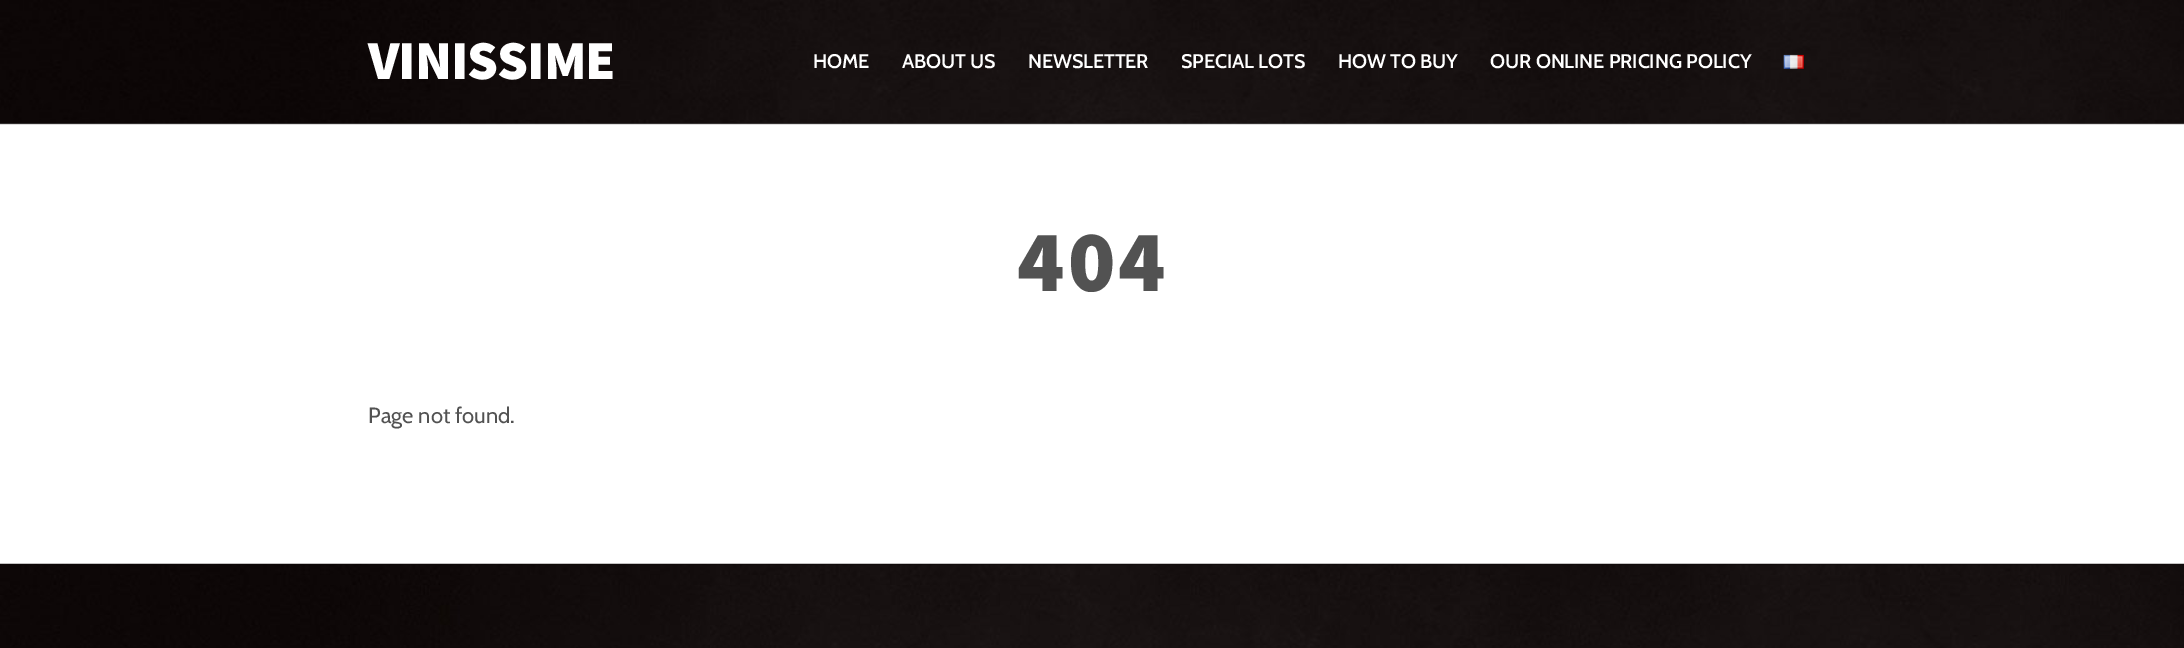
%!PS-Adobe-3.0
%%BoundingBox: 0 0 2184 648
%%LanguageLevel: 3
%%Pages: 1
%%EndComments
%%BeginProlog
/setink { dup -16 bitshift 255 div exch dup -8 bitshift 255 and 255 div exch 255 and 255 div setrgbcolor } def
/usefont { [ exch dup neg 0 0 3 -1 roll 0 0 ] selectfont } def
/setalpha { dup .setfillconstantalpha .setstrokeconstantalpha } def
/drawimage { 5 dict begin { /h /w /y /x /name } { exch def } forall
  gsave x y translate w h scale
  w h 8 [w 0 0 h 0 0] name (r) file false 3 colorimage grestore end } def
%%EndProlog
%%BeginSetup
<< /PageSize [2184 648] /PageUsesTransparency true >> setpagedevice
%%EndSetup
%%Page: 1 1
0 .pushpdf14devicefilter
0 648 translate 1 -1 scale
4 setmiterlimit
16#FFFFFF setink
0 0 2184 648 rectfill
16#808080 setink
0 123 2184 1 rectfill
(img1.raw) 0 0 2184 125 drawimage
0.1 setalpha
16#000000 setink
0 123 2184 1 rectfill
/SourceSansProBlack-Black 55 usefont
1 setalpha
16#FFFFFF setink
368 79 moveto -1 0 (VINISSIME) ashow
/Cabin-SemiBold 19.75 usefont
813 68 moveto -0.1 0 (HOME) ashow
902 68 moveto -0.1 0 (ABOUT US) ashow
1028 68 moveto -0.1 0 (NEWSLETTER) ashow
1181 68 moveto -0.1 0 (SPECIAL LOTS) ashow
1338 68 moveto -0.1 0 (HOW TO BUY) ashow
1490 68 moveto -0.1 0 (OUR ONLINE PRICING POLICY) ashow
(img2.raw) 1783 54 21 15 drawimage
/SourceSansProBlack-Black 88 usefont
16#525252 setink
1017 291 moveto 3 0 (404) ashow
/Cabin-Regular 22 usefont
368 423 moveto (Page not found.) show
(img3.raw) 0 563 2184 85 drawimage
16#100B0B setink
576 647 2 1 rectfill
.poppdf14devicefilter showpage
%%EOF
